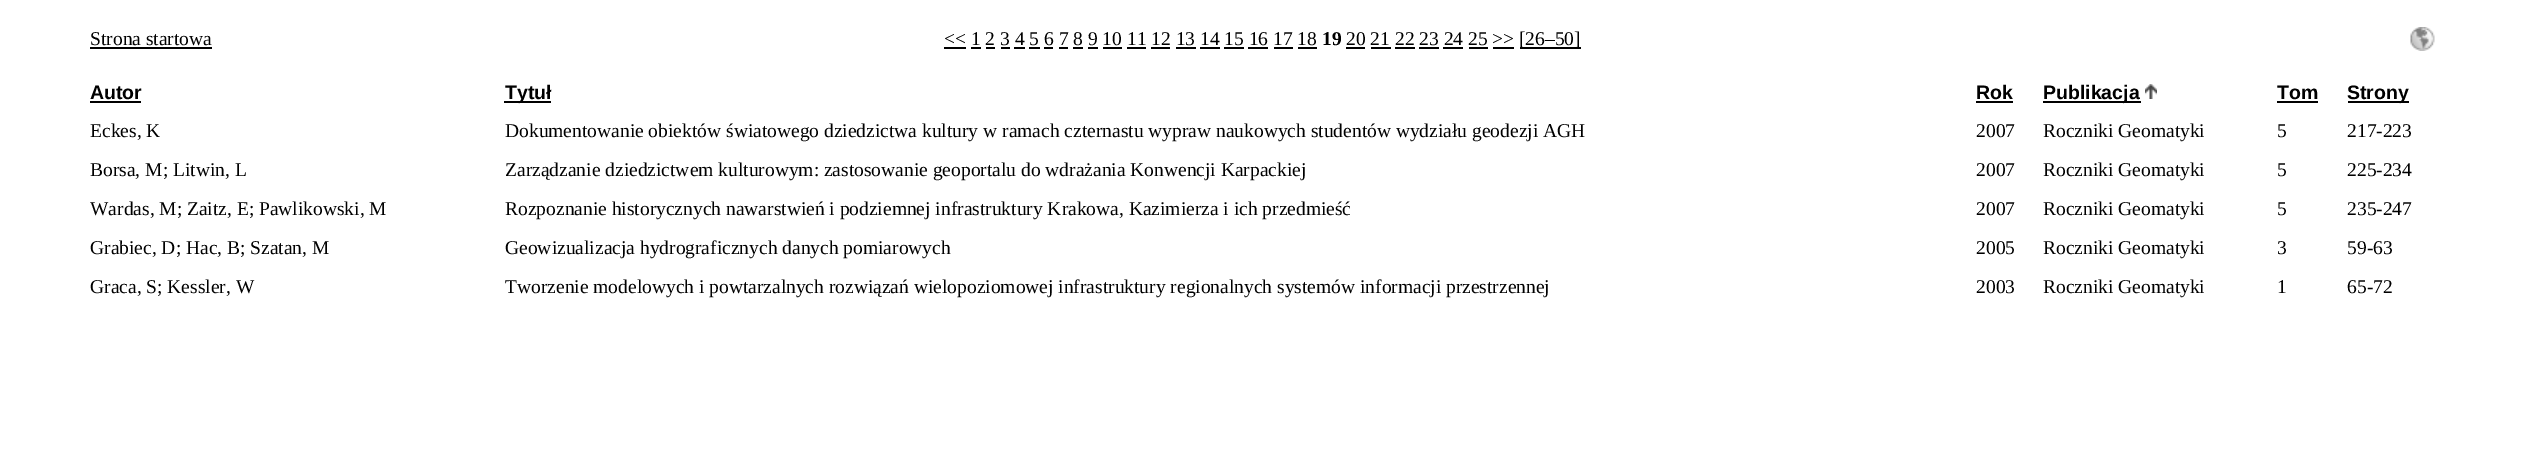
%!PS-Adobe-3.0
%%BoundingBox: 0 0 2524 454
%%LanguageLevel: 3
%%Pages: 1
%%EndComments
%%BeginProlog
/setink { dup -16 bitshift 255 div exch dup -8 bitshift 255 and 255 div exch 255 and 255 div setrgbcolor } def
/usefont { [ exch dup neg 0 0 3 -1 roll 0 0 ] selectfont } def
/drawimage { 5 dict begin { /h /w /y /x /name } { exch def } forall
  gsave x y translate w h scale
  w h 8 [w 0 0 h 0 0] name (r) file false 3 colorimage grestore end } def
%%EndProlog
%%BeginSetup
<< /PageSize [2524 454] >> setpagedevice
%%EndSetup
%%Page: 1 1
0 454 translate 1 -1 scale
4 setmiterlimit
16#FFFFFF setink
0 0 2524 454 rectfill
/LiberationSerif-Regular 19.5 usefont
16#000000 setink
90 45 moveto (Strona startowa) show
90 47 122 2 rectfill
944 45 moveto (<< 1 2 3 4 5 6 7 8 9 10 11 12 13 14 15 16 17 18) show
944 47 22 2 rectfill
/LiberationSerif-Bold 19.5 usefont
1322 45 moveto (19) show
/LiberationSerif-Regular 19.5 usefont
1346 45 moveto (20 21 22 23 24 25 >>) show
1346 47 19 2 rectfill
1520 47 61 2 rectfill
1519 45 moveto ([26–50]) show
[
    [971 47 10 2 16#000000]
    [986 47 9 2 16#000000]
    [1001 47 9 2 16#000000]
    [1014 47 11 2 16#000000]
    [1029 47 11 2 16#000000]
    [1044 47 9 2 16#000000]
    [1059 47 9 2 16#000000]
    [1073 47 10 2 16#000000]
    [1088 47 10 2 16#000000]
    [1103 47 19 2 16#000000]
    [1127 47 19 2 16#000000]
    [1151 47 19 2 16#000000]
    [1176 47 20 2 16#000000]
    [1200 47 20 2 16#000000]
    [1224 47 20 2 16#000000]
    [1248 47 20 2 16#000000]
    [1274 47 19 2 16#000000]
    [1298 47 19 2 16#000000]
    [1371 47 20 2 16#000000]
    [1395 47 20 2 16#000000]
    [1419 47 20 2 16#000000]
    [1443 47 20 2 16#000000]
    [1469 47 19 2 16#000000]
    [1493 47 21 2 16#000000]
] { aload pop setink rectfill } forall
(img1.raw) 2410 27 25 24 drawimage
/LiberationSans-Bold 19.5 usefont
90 99 moveto (Autor) show
90 101 51 2 rectfill
504 101 47 2 rectfill
505 99 moveto (Tytuł) show
1976 99 moveto (Rok) show
1976 101 37 2 rectfill
2043 101 98 2 rectfill
2043 99 moveto (Publikacja) show
(img2.raw) 2145 84 12 15 drawimage
2277 99 moveto (Tom) show
2277 101 41 2 rectfill
2348 101 61 2 rectfill
2347 99 moveto (Strony) show
/LiberationSerif-Regular 19.5 usefont
[
    [(Eckes, K) 90 137]
    [(Dokumentowanie obiektów światowego dziedzictwa kultury w ramach czternastu wypraw naukowych studentów wydziału geodezji AGH) 505 137]
    [(2007) 1976 137]
    [(Roczniki Geomatyki) 2043 137]
    [(5) 2277 137]
    [(217-223) 2347 137]
    [(Borsa, M; Litwin, L) 90 176]
    [(Zarządzanie dziedzictwem kulturowym: zastosowanie geoportalu do wdrażania Konwencji Karpackiej) 505 176]
    [(2007) 1976 176]
    [(Roczniki Geomatyki) 2043 176]
    [(5) 2277 176]
    [(225-234) 2347 176]
    [(Wardas, M; Zaitz, E; Pawlikowski, M) 90 215]
    [(Rozpoznanie historycznych nawarstwień i podziemnej infrastruktury Krakowa, Kazimierza i ich przedmieść) 505 215]
    [(2007) 1976 215]
    [(Roczniki Geomatyki) 2043 215]
    [(5) 2277 215]
    [(235-247) 2347 215]
    [(Grabiec, D; Hac, B; Szatan, M) 90 254]
    [(Geowizualizacja hydrograficznych danych pomiarowych) 505 254]
    [(2005) 1976 254]
    [(Roczniki Geomatyki) 2043 254]
    [(3) 2277 254]
    [(59-63) 2347 254]
    [(Graca, S; Kessler, W) 90 293]
    [(Tworzenie modelowych i powtarzalnych rozwiązań wielopoziomowej infrastruktury regionalnych systemów informacji przestrzennej) 505 293]
    [(2003) 1976 293]
    [(Roczniki Geomatyki) 2043 293]
    [(1) 2277 293]
    [(65-72) 2347 293]
] { aload pop moveto show } forall
showpage
%%EOF
